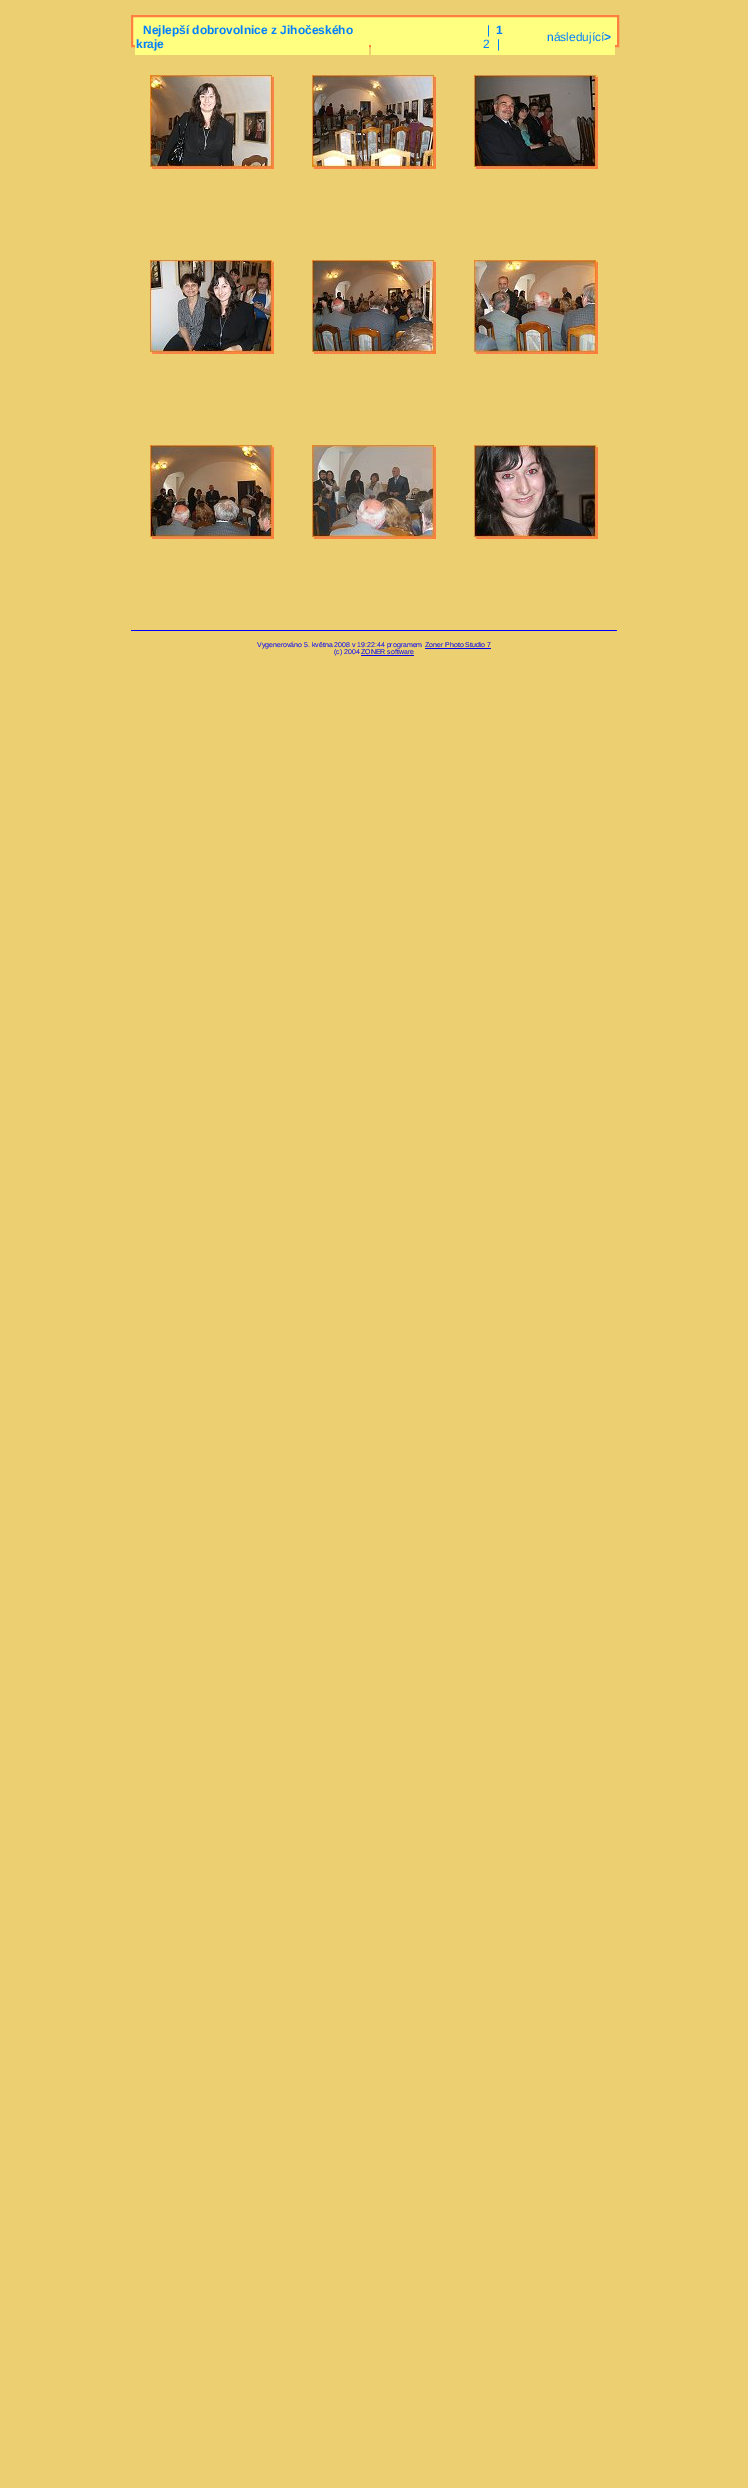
%!PS-Adobe-3.0
%%BoundingBox: 0 0 748 2488
%%LanguageLevel: 3
%%Pages: 1
%%EndComments
%%BeginProlog
/setink { dup -16 bitshift 255 div exch dup -8 bitshift 255 and 255 div exch 255 and 255 div setrgbcolor } def
/usefont { [ exch dup neg 0 0 3 -1 roll 0 0 ] selectfont } def
/drawimage { 5 dict begin { /h /w /y /x /name } { exch def } forall
  gsave x y translate w h scale
  w h 8 [w 0 0 h 0 0] name (r) file false 3 colorimage grestore end } def
%%EndProlog
%%BeginSetup
<< /PageSize [748 2488] >> setpagedevice
%%EndSetup
%%Page: 1 1
0 2488 translate 1 -1 scale
4 setmiterlimit
16#EBCF70 setink
0 0 748 2488 rectfill
16#FFFF80 setink
133 17 484 28 rectfill
16#FF8040 setink
131.5 15.5 487 31 rectstroke
132.5 16.5 485 29 rectstroke
16#FFFF80 setink
135 45 234 10 rectfill
/LiberationSans-Bold 12 usefont
16#0080FF setink
143 34 moveto (Nejlepší dobrovolnice z Jihočeského) show
136 48 moveto (kraje) show
16#FFFF80 setink
371 45 244 10 rectfill
/LiberationSans-Regular 12 usefont
16#0080FF setink
487 34 moveto (|) show
/LiberationSans-Bold 12 usefont
496 34 moveto (1) show
/LiberationSans-Regular 12 usefont
[
    [(2) 483 48]
    [(|) 497 48]
    [(následující) 547 41]
] { aload pop moveto show } forall
/LiberationSans-Bold 12 usefont
604 41 moveto (>) show
(img1.raw) 150 75 124 94 drawimage
(img2.raw) 312 75 124 94 drawimage
(img3.raw) 474 75 124 94 drawimage
(img4.raw) 150 260 124 94 drawimage
(img5.raw) 312 260 124 94 drawimage
(img6.raw) 474 260 124 94 drawimage
(img7.raw) 150 445 124 94 drawimage
(img8.raw) 312 445 124 94 drawimage
(img9.raw) 474 445 124 94 drawimage
16#0000FF setink
131 630 486 1 rectfill
/LiberationSans-Regular 7 usefont
257 647 moveto (Vygenerováno 5. května 2008 v 19:22:44 programem) show
16#0000EE setink
425 647 moveto (Zoner Photo Studio 7) show
425 648 66 1 rectfill
16#0000FF setink
334 654 moveto (\(c\) 2004) show
16#0000EE setink
361 654 moveto (ZONER software) show
361 655 53 1 rectfill
showpage
%%EOF
